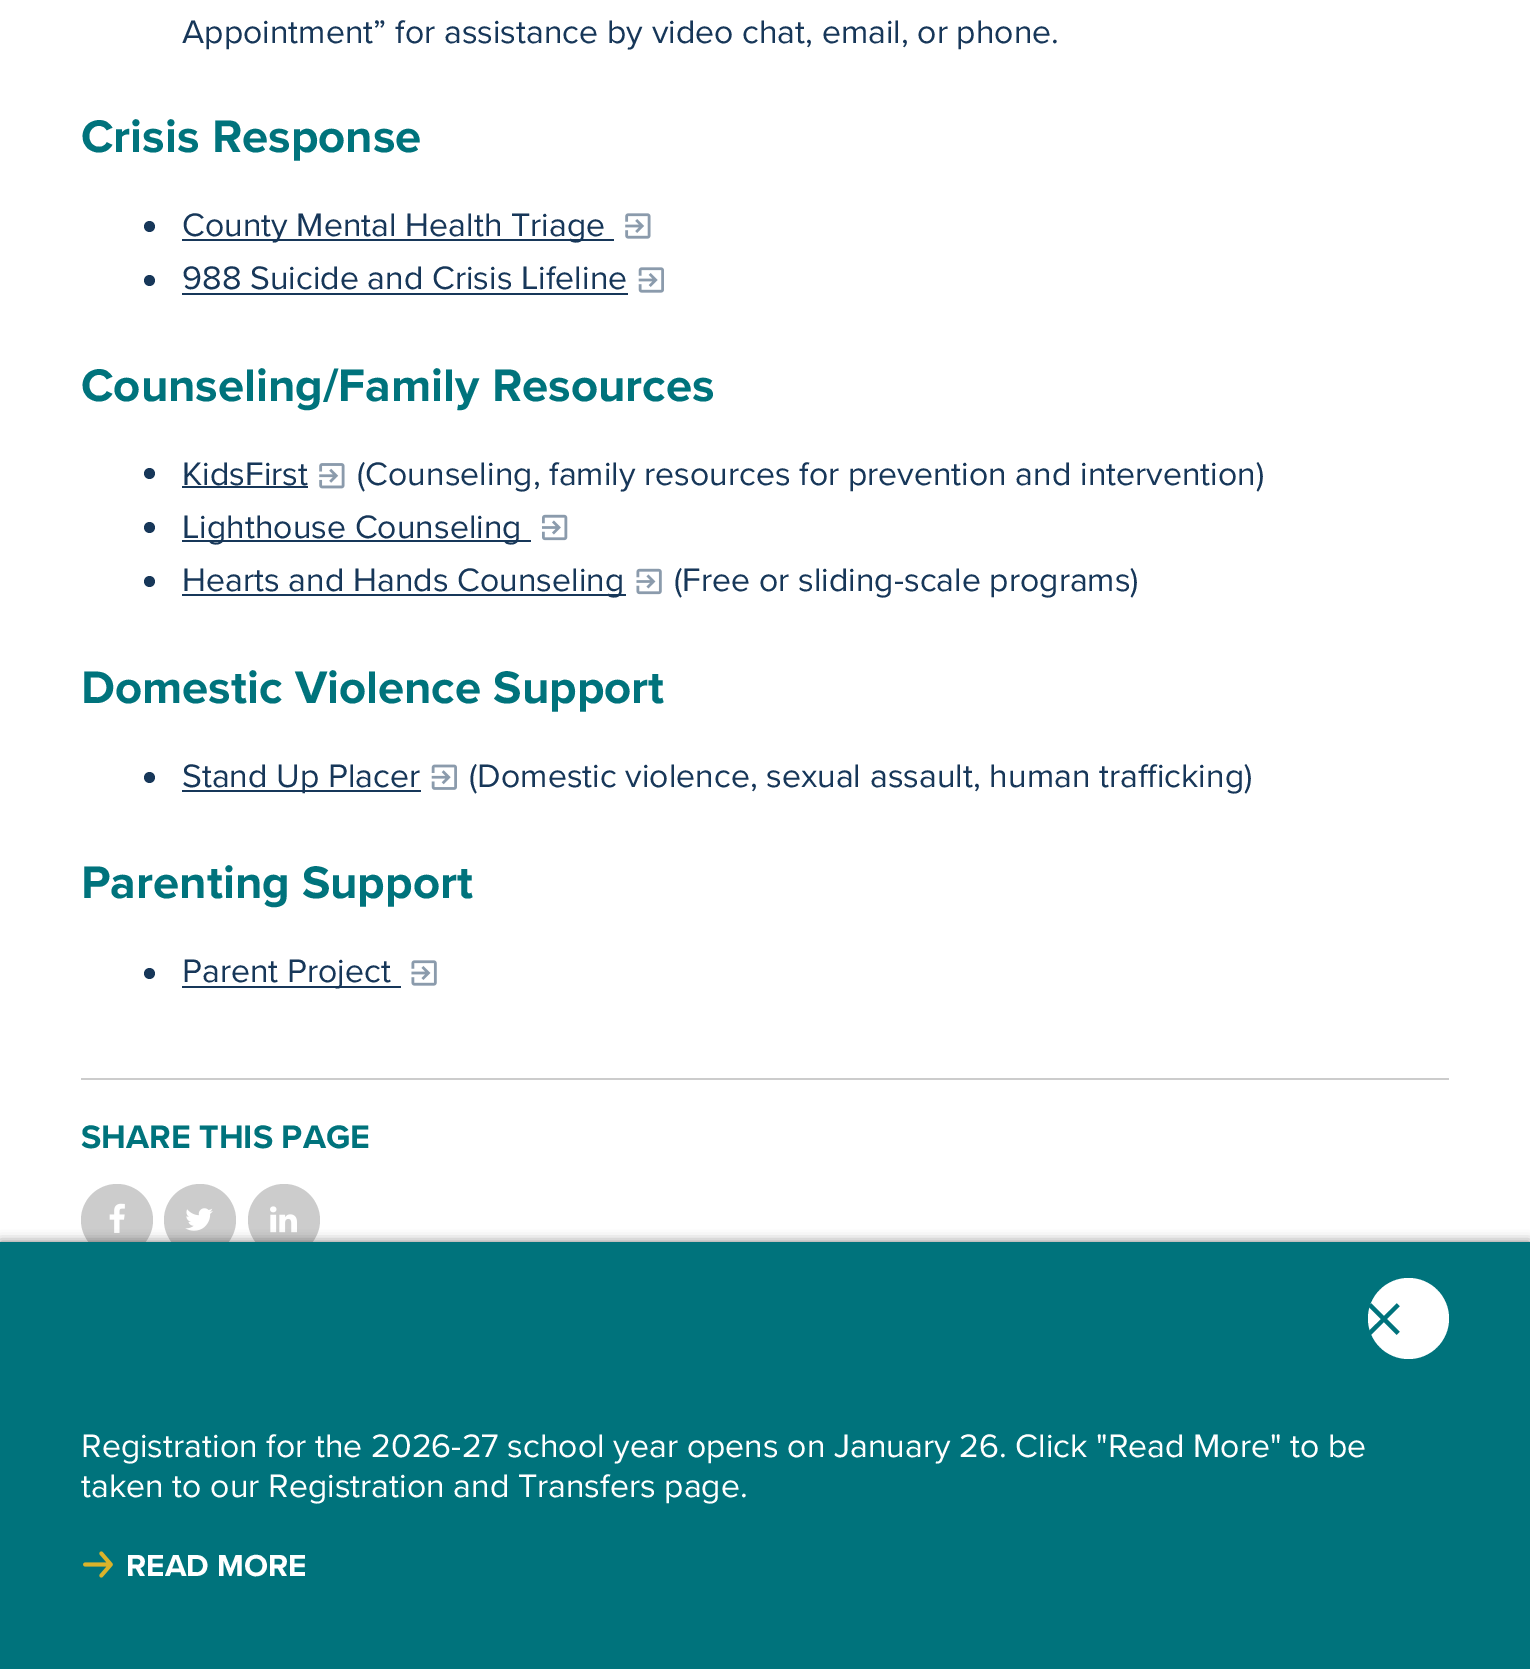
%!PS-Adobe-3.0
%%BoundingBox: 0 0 1530 1669
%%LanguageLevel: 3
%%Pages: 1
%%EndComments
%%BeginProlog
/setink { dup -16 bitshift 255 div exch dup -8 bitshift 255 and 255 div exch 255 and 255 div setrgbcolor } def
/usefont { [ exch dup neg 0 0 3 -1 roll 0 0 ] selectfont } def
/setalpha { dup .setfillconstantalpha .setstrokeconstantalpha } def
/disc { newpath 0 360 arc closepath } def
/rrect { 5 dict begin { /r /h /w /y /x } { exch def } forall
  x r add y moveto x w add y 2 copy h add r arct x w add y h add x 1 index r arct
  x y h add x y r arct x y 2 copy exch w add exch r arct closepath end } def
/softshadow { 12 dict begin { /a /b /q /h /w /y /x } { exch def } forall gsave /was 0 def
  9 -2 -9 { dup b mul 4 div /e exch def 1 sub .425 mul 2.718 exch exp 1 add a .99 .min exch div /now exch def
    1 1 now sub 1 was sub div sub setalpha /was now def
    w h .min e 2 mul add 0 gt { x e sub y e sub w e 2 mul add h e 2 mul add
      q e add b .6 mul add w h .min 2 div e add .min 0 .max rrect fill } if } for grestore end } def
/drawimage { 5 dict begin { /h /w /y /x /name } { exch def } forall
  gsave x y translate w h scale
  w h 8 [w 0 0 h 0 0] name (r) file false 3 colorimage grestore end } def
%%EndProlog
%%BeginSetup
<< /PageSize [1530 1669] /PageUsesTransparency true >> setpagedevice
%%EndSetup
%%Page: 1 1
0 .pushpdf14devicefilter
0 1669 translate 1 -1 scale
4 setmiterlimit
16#FFFFFF setink
0 0 1530 1669 rectfill
/ProximaNova-Regular 33.75 usefont
16#173759 setink
182 43 moveto (Appointment” for assistance by video chat, email, or phone.) show
/ProximaNova-Bold 47.25 usefont
16#00737C setink
81 152 moveto (Crisis Response) show
16#173759 setink
149.5 226.5 5.5 disc fill
182 239 432 2 rectfill
/ProximaNova-Regular 33.75 usefont
182 236 moveto (County Mental Health Triage) show
(img1.raw) 625 213 26 26 drawimage
149.5 280.5 5.5 disc fill
182 289 moveto (988 Suicide and Crisis Lifeline) show
182 293 446 2 rectfill
(img2.raw) 638 267 26 26 drawimage
/ProximaNova-Bold 47.25 usefont
16#00737C setink
81 401 moveto (Counseling/Family Resources) show
16#173759 setink
149.5 473.5 5.5 disc fill
/ProximaNova-Regular 33.75 usefont
182 485 moveto (KidsFirst) show
182 486 126 2 rectfill
(img3.raw) 319 463 26 26 drawimage
357 485 moveto (\(Counseling, family resources for prevention and intervention\)) show
149.5 527.5 5.5 disc fill
182 540 349 2 rectfill
182 538 moveto (Lighthouse Counseling) show
(img4.raw) 542 514 26 27 drawimage
149.5 581.5 5.5 disc fill
182 594 444 2 rectfill
182 591 moveto (Hearts and Hands Counseling) show
(img5.raw) 636 568 26 27 drawimage
674 591 moveto (\(Free or sliding-scale programs\)) show
/ProximaNova-Bold 47.25 usefont
16#00737C setink
81 703 moveto (Domestic Violence Support) show
16#173759 setink
149.5 777.5 5.5 disc fill
182 790 239 2 rectfill
/ProximaNova-Regular 33.75 usefont
182 787 moveto (Stand Up Placer) show
(img6.raw) 431 764 26 26 drawimage
469 787 moveto (\(Domestic violence, sexual assault, human trafficking\)) show
/ProximaNova-Bold 47.25 usefont
16#00737C setink
81 898 moveto (Parenting Support) show
16#173759 setink
149.5 973.5 5.5 disc fill
182 986 219 2 rectfill
/ProximaNova-Regular 33.75 usefont
182 982 moveto (Parent Project) show
(img7.raw) 411 960 26 26 drawimage
16#CCCCCC setink
81 1078 1368 2 rectfill
/ProximaNova-Bold 33.75 usefont
16#00737C setink
81 1148 moveto (SHARE THIS PAGE) show
16#CCCCCC setink
117 1220 36 disc fill
(img8.raw) 109 1203 16 30 drawimage
200 1220 36 disc fill
(img9.raw) 185 1208 28 23 drawimage
284 1220 36 disc fill
(img10.raw) 270 1206 27 27 drawimage
16#000000 setink
0 1242 1530 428 0 5.5 0.5 softshadow
16#00737C setink
0 1242 1530 427 rectfill
16#FFFFFF setink
1408.5 1318.5 40.5 disc fill
/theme-Regular 81 usefont
16#00737C setink
1368 1355 moveto (✕) show
/ProximaNova-Regular 33.75 usefont
16#FFFFFF setink
81 1457 moveto (Registration for the 2026-27 school year opens on January 26. Click "Read More" to be) show
81 1497 moveto (taken to our Registration and Transfers page.) show
(img11.raw) 83 1551 30 27 drawimage
/ProximaNova-Bold 31.5 usefont
126 1576 moveto (READ MORE) show
.poppdf14devicefilter showpage
%%EOF
